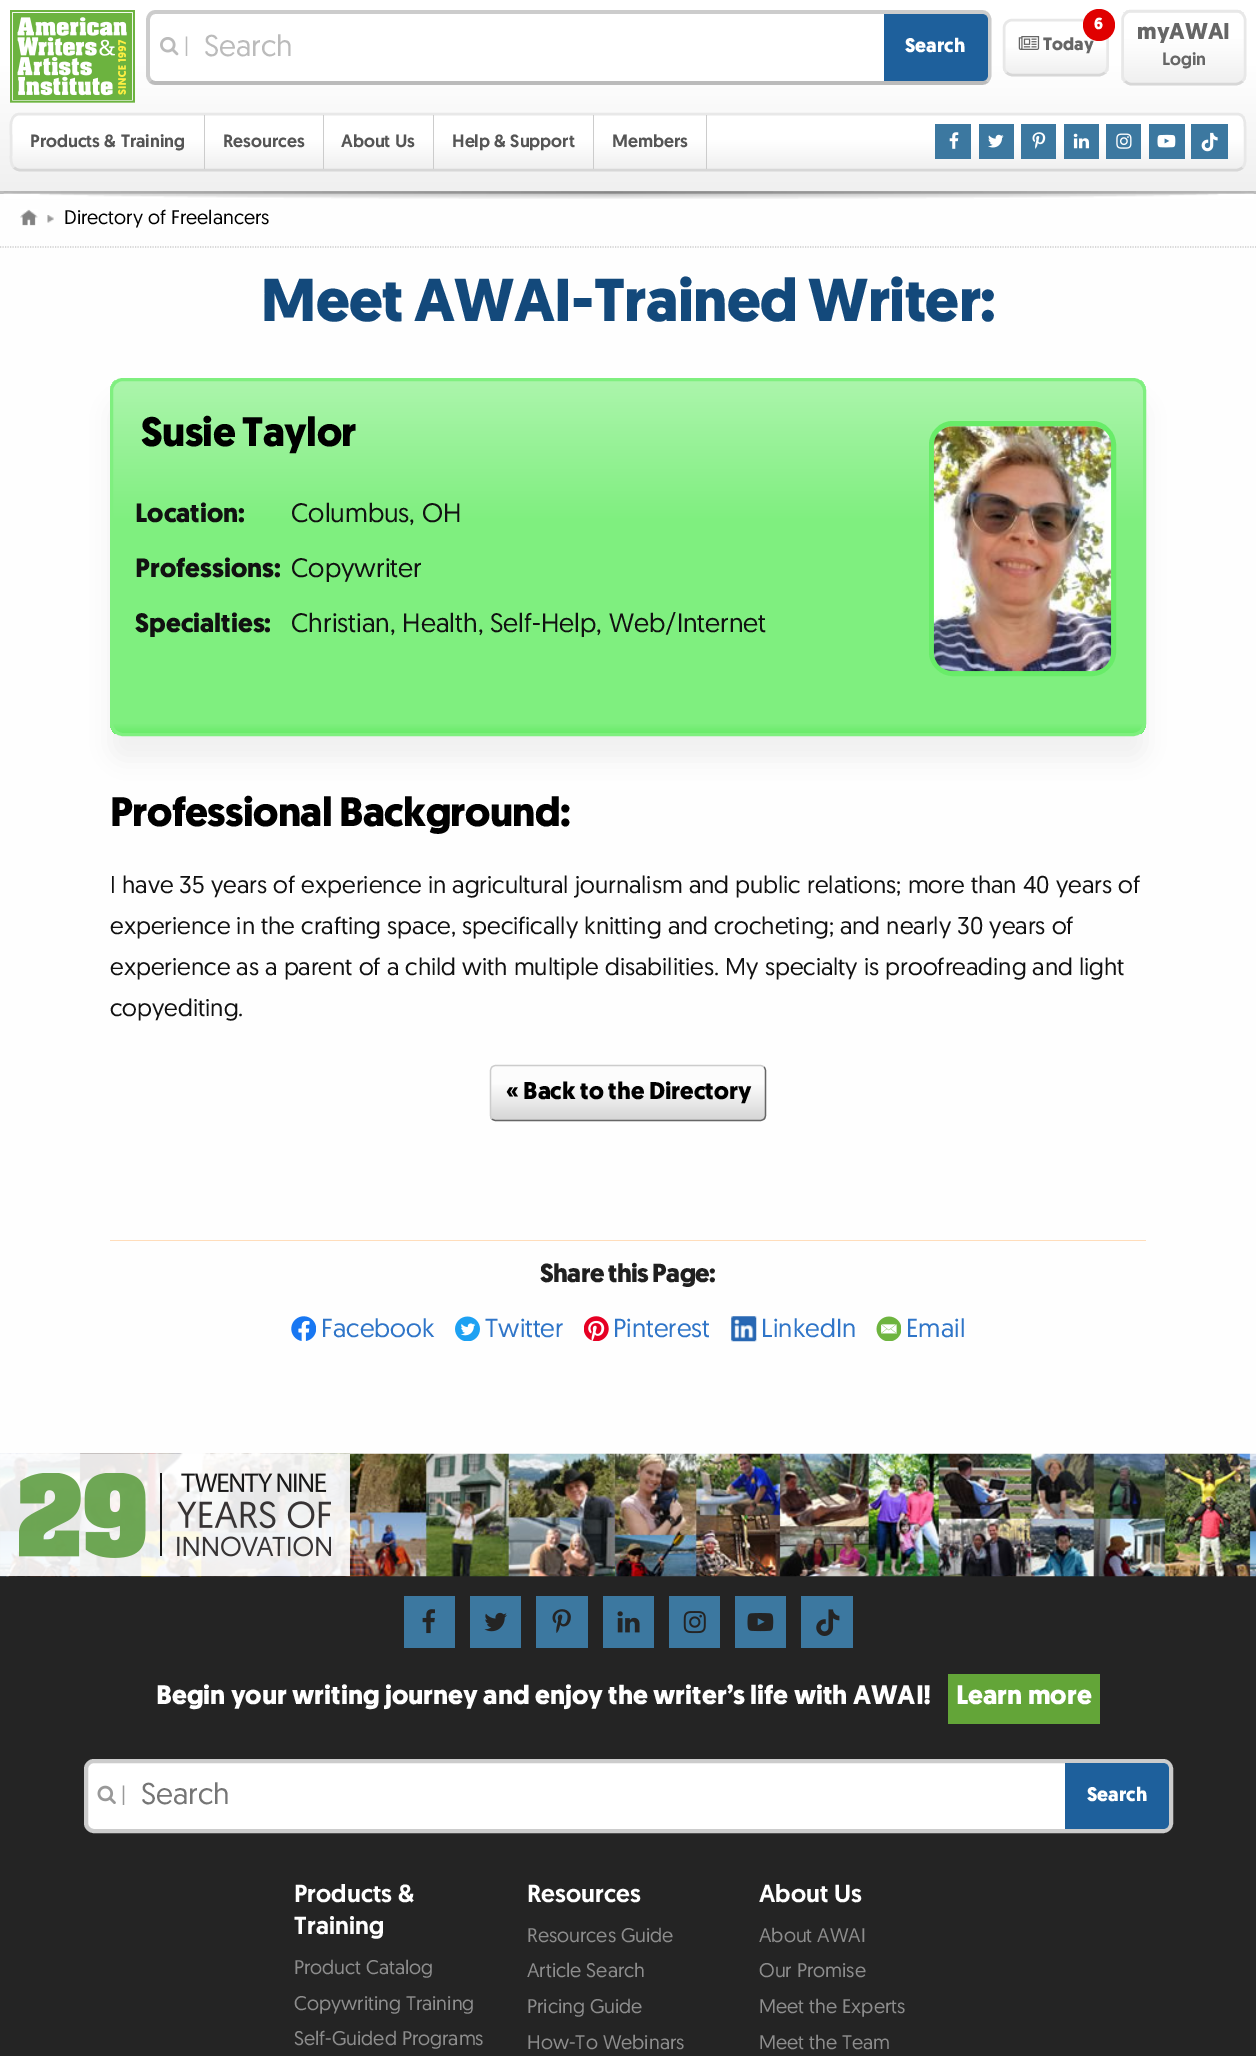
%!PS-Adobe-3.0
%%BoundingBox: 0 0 1256 2056
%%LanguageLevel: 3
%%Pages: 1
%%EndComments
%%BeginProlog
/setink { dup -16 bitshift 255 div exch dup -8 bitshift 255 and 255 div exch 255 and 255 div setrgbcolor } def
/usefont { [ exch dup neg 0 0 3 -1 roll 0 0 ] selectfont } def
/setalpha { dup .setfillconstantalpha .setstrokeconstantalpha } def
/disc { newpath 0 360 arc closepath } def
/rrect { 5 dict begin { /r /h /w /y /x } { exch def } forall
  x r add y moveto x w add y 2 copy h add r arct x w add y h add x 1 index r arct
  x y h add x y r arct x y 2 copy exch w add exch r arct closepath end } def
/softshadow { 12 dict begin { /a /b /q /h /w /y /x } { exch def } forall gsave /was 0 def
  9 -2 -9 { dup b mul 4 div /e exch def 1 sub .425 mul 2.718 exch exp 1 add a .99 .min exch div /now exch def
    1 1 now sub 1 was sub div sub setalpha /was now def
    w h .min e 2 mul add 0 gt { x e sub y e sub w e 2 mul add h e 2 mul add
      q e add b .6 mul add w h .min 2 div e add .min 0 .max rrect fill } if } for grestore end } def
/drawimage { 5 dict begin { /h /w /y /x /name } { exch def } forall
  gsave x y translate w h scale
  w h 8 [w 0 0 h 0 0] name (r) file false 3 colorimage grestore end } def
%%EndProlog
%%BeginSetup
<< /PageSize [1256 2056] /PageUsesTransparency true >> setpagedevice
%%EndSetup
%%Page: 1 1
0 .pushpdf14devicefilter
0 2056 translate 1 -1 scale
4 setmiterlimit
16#242424 setink
0 0 1256 2056 rectfill
gsave 0 0 moveto 1256 0 lineto 1256 191 lineto 0 191 lineto closepath clip newpath
<< /ShadingType 2 /ColorSpace /DeviceRGB /Coords [628 0 628 191] /Extend [true true] /Function << /FunctionType 3 /Domain [0 1] /Functions [<< /FunctionType 2 /Domain [0 1] /C0 [1 1 1] /C1 [1 1 1] /N 1 >> << /FunctionType 2 /Domain [0 1] /C0 [1 1 1] /C1 [0.941 0.941 0.941] /N 1 >>] /Bounds [0.33] /Encode [0 1 0 1] >> >> shfill grestore
16#BDBDBD setink
0 191 1256 3 rectfill
(img1.raw) 10 10 125 93 drawimage
16#FFFFFF setink
146 10 845 75 10 rrect fill
16#BBBBBB setink
3.8 setlinewidth
987 81 moveto 985.5 82.5 983.5 83 981.5 83 curveto 156 83 lineto 154 83 152 82.5 150.5 81 curveto stroke
16#CCCCCC setink
150.5 81 moveto 149 79.5 148 77 148 75 curveto 148 20 lineto 148 18 149 15.5 150.5 14 curveto 152 12.5 154 12 156 12 curveto 981.5 12 lineto 983.5 12 985.5 12.5 987 14 curveto 988.5 15.5 989.5 18 989.5 20 curveto 989.5 75 lineto 989.5 77 988.5 79.5 987 81 curveto stroke
(img2.raw) 160 37 19 19 drawimage
/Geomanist-Regular 19.75 usefont
16#BBBBBB setink
184 52 moveto (|) show
/Geomanist-Regular 30 usefont
204 56 moveto (Search) show
16#1E609C setink
884 14 moveto 982 14 lineto 985.5 14 988 16.5 988 20 curveto 988 75 lineto 988 78.5 985.5 81 982 81 curveto 884 81 lineto closepath fill
/Geomanist-Bold 19.75 usefont
16#FFFFFF setink
905 52 moveto (Search) show
gsave
1003 19 106 57 10 rrect clip newpath
gsave 1003 21 moveto 1109 21 lineto 1109 74 lineto 1003 74 lineto closepath clip newpath
<< /ShadingType 2 /ColorSpace /DeviceRGB /Coords [1056 21 1056 74] /Extend [true true] /Function << /FunctionType 3 /Domain [0 1] /Functions [<< /FunctionType 2 /Domain [0 1] /C0 [1 1 1] /C1 [1 1 1] /N 1 >> << /FunctionType 2 /Domain [0 1] /C0 [1 1 1] /C1 [0.941 0.941 0.941] /N 1 >>] /Bounds [0.48] /Encode [0 1 0 1] >> >> shfill grestore
grestore
16#D7D7D7 setink
2.5 setlinewidth
1105 72.5 moveto 1103.5 74 1101 75 1099 75 curveto 1012.5 75 lineto 1010 75 1008 74 1006.5 72.5 curveto stroke
16#E8E8E8 setink
1006.5 72.5 moveto 1004.5 71 1004 68.5 1004 66 curveto 1004 29 lineto 1004 26.5 1004.5 24 1006.5 22.5 curveto 1008 21 1010 20 1012.5 20 curveto 1099 20 lineto 1101 20 1103.5 21 1105 22.5 curveto 1106.5 24 1107.5 26.5 1107.5 29 curveto 1107.5 66 lineto 1107.5 68.5 1106.5 71 1105 72.5 curveto stroke
/Geomanist-Bold 17.75 usefont
16#666666 setink
1043 50 moveto (Today) show
16#E00000 setink
1099 25 16 disc fill
/Geomanist-Bold 16 usefont
16#FFFFFF setink
1094 29 moveto (6) show
(img3.raw) 1018 36 22 14 drawimage
gsave
1121 10 125 75 10 rrect clip newpath
gsave 1121 10 moveto 1246 10 lineto 1246 13 lineto 1121 13 lineto closepath clip newpath
<< /ShadingType 2 /ColorSpace /DeviceRGB /Coords [1184 -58 1184 13] /Extend [true true] /Function << /FunctionType 3 /Domain [0 1] /Functions [<< /FunctionType 2 /Domain [0 1] /C0 [1 1 1] /C1 [1 1 1] /N 1 >> << /FunctionType 2 /Domain [0 1] /C0 [1 1 1] /C1 [0.941 0.941 0.941] /N 1 >>] /Bounds [0.36] /Encode [0 1 0 1] >> >> shfill grestore
gsave 1121 13 moveto 1246 13 lineto 1246 83 lineto 1121 83 lineto closepath clip newpath
<< /ShadingType 2 /ColorSpace /DeviceRGB /Coords [1184 12 1184 83] /Extend [true true] /Function << /FunctionType 3 /Domain [0 1] /Functions [<< /FunctionType 2 /Domain [0 1] /C0 [1 1 1] /C1 [1 1 1] /N 1 >> << /FunctionType 2 /Domain [0 1] /C0 [1 1 1] /C1 [0.941 0.941 0.941] /N 1 >>] /Bounds [0.36] /Encode [0 1 0 1] >> >> shfill grestore
grestore
16#D7D7D7 setink
1242.5 81 moveto 1241 83 1238.5 84 1236 84 curveto 1131 84 lineto 1129 84 1126.5 83 1125 81 curveto stroke
16#E8E8E8 setink
1125 81 moveto 1123.5 79.5 1122.5 77.5 1122.5 75 curveto 1122.5 20 lineto 1122.5 17.5 1123.5 15.5 1125 14 curveto 1126.5 12 1129 11 1131 11 curveto 1236 11 lineto 1238.5 11 1241 12 1242.5 14 curveto 1244 15.5 1245 17.5 1245 20 curveto 1245 75 lineto 1245 77.5 1244 79.5 1242.5 81 curveto stroke
/Geomanist-Bold 23 usefont
16#666666 setink
1137 39 moveto (myAWAI) show
/Geomanist-Medium 17.75 usefont
1162 65 moveto (Login) show
gsave
10 113 1236 58 10 rrect clip newpath
gsave 10 115 moveto 1246 115 lineto 1246 169 lineto 10 169 lineto closepath clip newpath
<< /ShadingType 2 /ColorSpace /DeviceRGB /Coords [628 115 628 169] /Extend [true true] /Function << /FunctionType 3 /Domain [0 1] /Functions [<< /FunctionType 2 /Domain [0 1] /C0 [1 1 1] /C1 [1 1 1] /N 1 >> << /FunctionType 2 /Domain [0 1] /C0 [1 1 1] /C1 [0.941 0.941 0.941] /N 1 >>] /Bounds [0.45] /Encode [0 1 0 1] >> >> shfill grestore
grestore
16#D7D7D7 setink
1242.5 167.5 moveto 1241 169 1238.5 170 1236.5 170 curveto 20 170 lineto 17.5 170 15.5 169 14 167.5 curveto stroke
16#E8E8E8 setink
14 167.5 moveto 10.5 164 11 159 11 155 curveto 11 135.5 lineto 11 128.5 8.5 114 20 114 curveto 1236.5 114 lineto 1245.5 114 1245 122.5 1245 129 curveto 1245 155 lineto 1245 159 1246 164 1242.5 167.5 curveto stroke
16#CCCCCC setink
204 115 1 54 rectfill
16#555555 setink
30 147 moveto (Products & Training) show
16#CCCCCC setink
323 115 1 54 rectfill
16#555555 setink
223 147 moveto (Resources) show
16#CCCCCC setink
433 115 1 54 rectfill
16#555555 setink
341 147 moveto (About Us) show
16#CCCCCC setink
593 115 1 54 rectfill
16#555555 setink
452 147 moveto (Help & Support) show
16#CCCCCC setink
706 115 1 54 rectfill
16#555555 setink
612 147 moveto (Members) show
16#3C78A0 setink
935 124 36 35 rectfill
(img4.raw) 949 132 10 17 drawimage
979 124 35 35 rectfill
(img5.raw) 988 134 16 14 drawimage
1021 124 35 35 rectfill
(img6.raw) 1032 132 14 17 drawimage
1064 124 35 35 rectfill
(img7.raw) 1073 133 17 16 drawimage
1106 124 35 35 rectfill
(img8.raw) 1116 133 16 16 drawimage
1149 124 36 35 rectfill
(img9.raw) 1157 134 19 14 drawimage
1191 124 37 35 rectfill
(img10.raw) 1201 132 17 20 drawimage
16#FEFEFE setink
0 194 1256 1260 rectfill
(img11.raw) 3 191 1251 8 drawimage
16#CCCCCC setink
1.2 setlinewidth
[1.25 1.25] 0 setdash
0 247 moveto 1256 247 lineto stroke
(img12.raw) 20 209 18 17 drawimage
(img13.raw) 47 215 7 8 drawimage
/Geomanist-Regular 19.75 usefont
16#000000 setink
64 224 moveto (Directory of Freelancers) show
/Geomanist-Bold 60.5 usefont
16#13497B setink
261 321 moveto -0.6 0 (Meet AWAI-Trained Writer:) ashow
16#000000 setink
110 401 1036 359 13 12 0.05 softshadow
gsave
110 378 1036 358 13 rrect clip newpath
gsave 110 380 moveto 1146 380 lineto 1146 734 lineto 110 734 lineto closepath clip newpath
<< /ShadingType 2 /ColorSpace /DeviceRGB /Coords [628 380 628 734] /Extend [true true] /Function << /FunctionType 3 /Domain [0 1] /Functions [<< /FunctionType 2 /Domain [0 1] /C0 [0.675 0.961 0.675] /C1 [0.498 0.937 0.498] /N 1 >> << /FunctionType 2 /Domain [0 1] /C0 [0.498 0.937 0.498] /C1 [0.498 0.937 0.498] /N 1 >> << /FunctionType 2 /Domain [0 1] /C0 [0.498 0.937 0.498] /C1 [0.408 0.925 0.408] /N 1 >>] /Bounds [0.4 0.97] /Encode [0 1 0 1 0 1] >> >> shfill grestore
grestore
16#7FEF7F setink
3 setlinewidth
[] 0 setdash
111.5 379.5 1033 355 11.5 rrect stroke
/Geomanist-Bold 41.1 usefont
16#000000 setink
141 446 moveto -0.6 0 (Susie Taylor) ashow
/Geomanist-Bold 26.6 usefont
16#111111 setink
135 522 moveto (Location:) show
/Geomanist-Regular 26.6 usefont
291 522 moveto (Columbus, OH) show
/Geomanist-Bold 26.6 usefont
135 577 moveto (Professions:) show
/Geomanist-Regular 26.6 usefont
291 577 moveto (Copywriter) show
/Geomanist-Bold 26.6 usefont
135 632 moveto (Specialties:) show
/Geomanist-Regular 26.6 usefont
291 632 moveto (Christian, Health, Self-Help, Web/Internet) show
16#68EC68 setink
5 setlinewidth
931.5 423.5 182 250 21.5 rrect stroke
(img14.raw) 933 426 179 246 drawimage
/Geomanist-Bold 41.1 usefont
16#000000 setink
110 826 moveto -0.6 0 (Professional Background:) ashow
/Geomanist-Regular 24.2 usefont
16#111111 setink
[
    [(I have 35 years of experience in agricultural journalism and public relations; more than 40 years of) 110 893]
    [(experience in the crafting space, specifically knitting and crocheting; and nearly 30 years of) 110 934]
    [(experience as a parent of a child with multiple disabilities. My specialty is proofreading and light) 110 975]
    [(copyediting.) 110 1016]
] { aload pop moveto show } forall
gsave
490 1065 276 56 6 rrect clip newpath
gsave 490 1066 moveto 766 1066 lineto 766 1120 lineto 490 1120 lineto closepath clip newpath
<< /ShadingType 2 /ColorSpace /DeviceRGB /Coords [628 1066 628 1120] /Extend [true true] /Function << /FunctionType 3 /Domain [0 1] /Functions [<< /FunctionType 2 /Domain [0 1] /C0 [0.988 0.988 0.988] /C1 [0.988 0.988 0.988] /N 1 >> << /FunctionType 2 /Domain [0 1] /C0 [0.988 0.988 0.988] /C1 [0.839 0.839 0.839] /N 1 >>] /Bounds [0.33] /Encode [0 1 0 1] >> >> shfill grestore
grestore
16#666666 setink
1.2 setlinewidth
764 1067 moveto 765 1068 765.5 1069.5 765.5 1071 curveto 765.5 1115 lineto 765.5 1116.5 765 1118 764 1119 curveto 763 1120 761.5 1120.5 760 1120.5 curveto 496 1120.5 lineto 494.5 1120.5 493 1120 492 1119 curveto stroke
16#CCCCCC setink
492 1119 moveto 491 1118 490.5 1116.5 490.5 1115 curveto 490.5 1071 lineto 490.5 1069.5 491 1068 492 1067 curveto 493 1066 494.5 1065.5 496 1065.5 curveto 760 1065.5 lineto 761.5 1065.5 763 1066 764 1067 curveto stroke
/Geomanist-Bold 24.2 usefont
16#000000 setink
506 1099 moveto (« Back to the Directory) show
16#FFDDBB setink
110 1240 1036 1 rectfill
/Geomanist-Bold 26 usefont
16#202020 setink
540 1282 moveto -0.6 0 (Share this Page:) ashow
(img15.raw) 291 1316 25 25 drawimage
/Geomanist-Regular 26 usefont
16#2F75C8 setink
321 1337 moveto (Facebook) show
(img16.raw) 455 1316 25 25 drawimage
485 1337 moveto (Twitter) show
(img17.raw) 584 1316 25 25 drawimage
613 1337 moveto (Pinterest) show
(img18.raw) 731 1316 26 26 drawimage
761 1337 moveto (LinkedIn) show
(img19.raw) 876 1316 25 25 drawimage
906 1337 moveto (Email) show
(img20.raw) 0 1453 1256 124 drawimage
0.9 setalpha
16#FFFFFF setink
0 1454 350 122 rectfill
1 setalpha
(img21.raw) 19 1473 312 85 drawimage
16#3C78A0 setink
404 1596 51 52 rectfill
(img22.raw) 422 1609 13 25 drawimage
470 1596 51 52 rectfill
(img23.raw) 484 1612 23 20 drawimage
536 1596 52 52 rectfill
(img24.raw) 552 1609 19 24 drawimage
603 1596 51 52 rectfill
(img25.raw) 617 1611 23 22 drawimage
669 1596 51 52 rectfill
(img26.raw) 683 1611 23 23 drawimage
735 1596 51 52 rectfill
(img27.raw) 747 1613 27 19 drawimage
801 1596 52 52 rectfill
(img28.raw) 816 1609 24 27 drawimage
/Geomanist-Bold 26.75 usefont
16#FFFFFF setink
156 1704 moveto (Begin your writing journey and enjoy the writer’s life with AWAI!) show
16#63A538 setink
948 1674 152 50 rectfill
16#FFFFFF setink
956 1704 moveto (Learn more) show
86 1761 1085 70 8 rrect gsave fill grestore
16#CCCCCC setink
4 setlinewidth
stroke
(img29.raw) 97 1785 19 19 drawimage
/Geomanist-Regular 19.75 usefont
16#999999 setink
121 1801 moveto (|) show
/Geomanist-Regular 30 usefont
16#757575 setink
141 1804 moveto (Search) show
16#1E609C setink
1065 1763 moveto 1163 1763 lineto 1166.5 1763 1169 1765.5 1169 1769 curveto 1169 1823 lineto 1169 1826.5 1166.5 1829 1163 1829 curveto 1065 1829 lineto closepath fill
/Geomanist-Bold 19.75 usefont
16#FFFFFF setink
1087 1801 moveto (Search) show
/Geomanist-Medium 24.75 usefont
294 1902 moveto (Products &) show
294 1934 moveto (Training) show
/Geomanist-Regular 19.75 usefont
16#8D8D8D setink
[
    [(Product Catalog) 294 1974]
    [(Copywriting Training) 294 2010]
    [(Self-Guided Programs) 294 2045]
] { aload pop moveto show } forall
/Geomanist-Medium 24.75 usefont
16#FFFFFF setink
527 1902 moveto (Resources) show
/Geomanist-Regular 19.75 usefont
16#8D8D8D setink
[
    [(Resources Guide) 527 1942]
    [(Article Search) 527 1977]
    [(Pricing Guide) 527 2013]
    [(How-To Webinars) 527 2049]
] { aload pop moveto show } forall
/Geomanist-Medium 24.75 usefont
16#FFFFFF setink
759 1902 moveto (About Us) show
/Geomanist-Regular 19.75 usefont
16#8D8D8D setink
[
    [(About AWAI) 759 1942]
    [(Our Promise) 759 1977]
    [(Meet the Experts) 759 2013]
    [(Meet the Team) 759 2049]
] { aload pop moveto show } forall
.poppdf14devicefilter showpage
%%EOF
